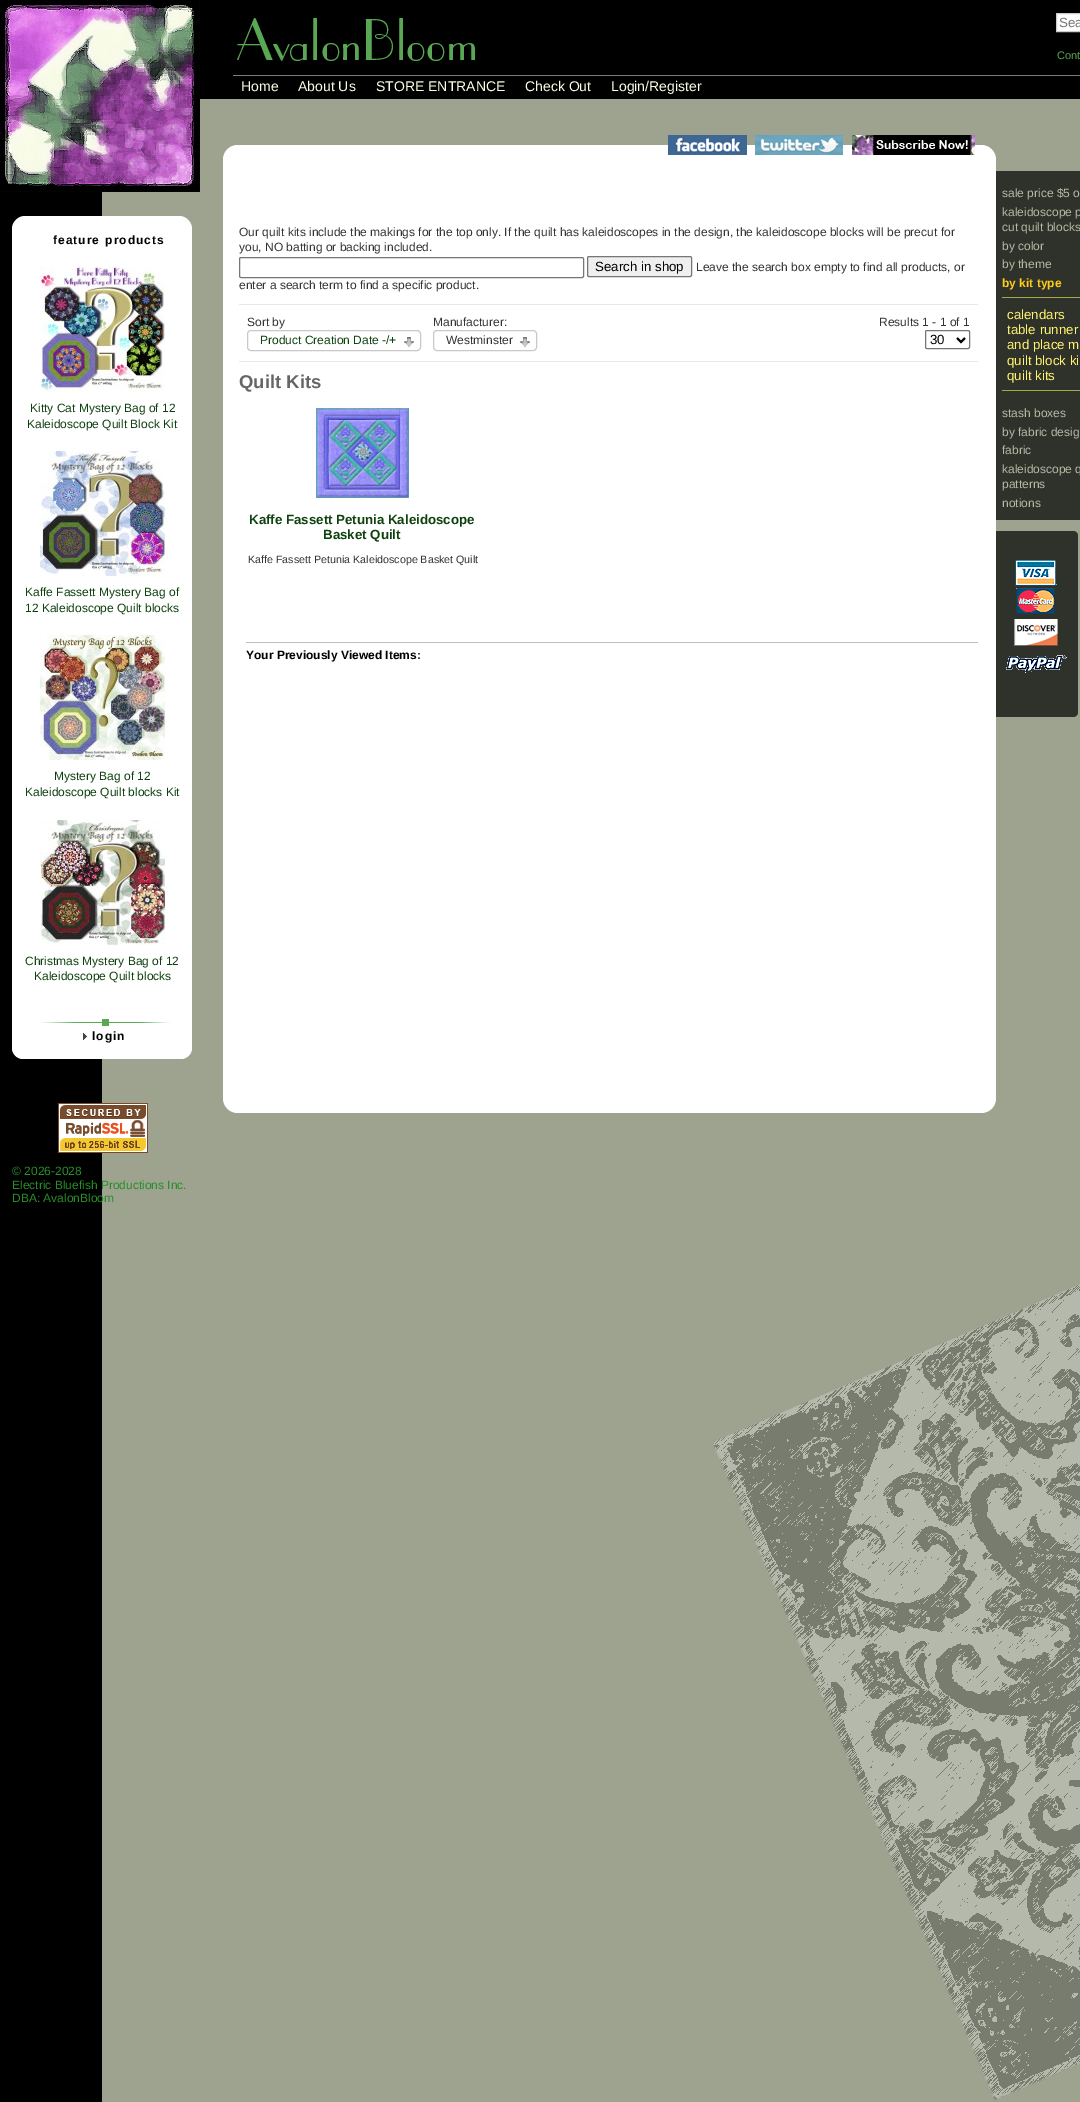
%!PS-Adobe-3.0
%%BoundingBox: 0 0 1080 2102
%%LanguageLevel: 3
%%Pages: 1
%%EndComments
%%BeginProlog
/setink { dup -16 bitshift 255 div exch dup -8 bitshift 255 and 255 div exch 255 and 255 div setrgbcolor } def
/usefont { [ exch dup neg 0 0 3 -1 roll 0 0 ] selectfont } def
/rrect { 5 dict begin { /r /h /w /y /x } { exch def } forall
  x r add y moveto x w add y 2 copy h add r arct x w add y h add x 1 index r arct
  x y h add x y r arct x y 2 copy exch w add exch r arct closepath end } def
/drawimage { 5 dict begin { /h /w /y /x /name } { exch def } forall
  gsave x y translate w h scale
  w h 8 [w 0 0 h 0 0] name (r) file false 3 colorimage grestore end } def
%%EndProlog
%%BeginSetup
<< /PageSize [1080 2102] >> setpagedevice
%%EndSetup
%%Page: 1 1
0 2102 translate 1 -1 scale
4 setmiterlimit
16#9EA390 setink
0 0 1080 2102 rectfill
16#000000 setink
200 0 880 99 rectfill
16#7C7C7C setink
233 75 847 1 rectfill
(img1.raw) 233 18 244 46 drawimage
16#FFFFFF setink
1056.5 13.5 moveto 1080.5 13.5 lineto 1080.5 31.5 lineto 1056.5 31.5 lineto closepath gsave fill grestore
16#CCCCCC setink
stroke
/LiberationSans-Regular 13.3 usefont
16#757575 setink
1059 27 moveto (Sea) show
/LiberationSans-Regular 11 usefont
16#5AA854 setink
1057 59 moveto (Cont) show
16#FFFFFF setink
238 145 moveto 981 145 lineto 989.5 145 996 151.5 996 160 curveto 223 160 lineto 223 151.5 229.5 145 238 145 curveto closepath fill
223 160 moveto 996 160 lineto 996 1098 lineto 996 1106.5 989.5 1113 981 1113 curveto 238 1113 lineto 229.5 1113 223 1106.5 223 1098 curveto closepath fill
(img2.raw) 668 135 79 20 drawimage
(img3.raw) 755 135 88 20 drawimage
(img4.raw) 852 135 123 20 drawimage
/LiberationSans-Regular 12 usefont
16#333333 setink
239 236 moveto (Our quilt kits include the makings for the top only. If the quilt has kaleidoscopes in the design, the kaleidoscope blocks will be precut for) show
239 251 moveto (you, NO batting or backing included.) show
16#767676 setink
239.5 257.5 344 20 1.5 rrect stroke
16#EFEFEF setink
587.5 256.5 104 20 1.5 rrect gsave fill grestore
16#767676 setink
stroke
/LiberationSans-Regular 13.3 usefont
16#000000 setink
595 271 moveto (Search in shop) show
/LiberationSans-Regular 12 usefont
16#333333 setink
696 271 moveto (Leave the search box empty to find all products, or) show
239 289 moveto (enter a search term to find a specific product.) show
16#E9E8E8 setink
239 304 739 1 rectfill
239 361 739 1 rectfill
16#333333 setink
247 326 moveto (Sort by) show
(img5.raw) 404 337 10 10 drawimage
16#CAC9C9 setink
247.5 330.5 173 20 3.5 rrect stroke
16#0D410E setink
260 344 moveto (Product Creation Date -/+) show
16#333333 setink
433 326 moveto (Manufacturer:) show
(img5.raw) 520 337 10 10 drawimage
16#CAC9C9 setink
433.5 330.5 103 20 3.5 rrect stroke
16#333333 setink
446 344 moveto (Westminster) show
879 326 moveto (Results 1 - 1 of 1) show
16#767676 setink
925.5 330.5 44 18 1.5 rrect stroke
16#000000 setink
2 setlinewidth
957 338 moveto 961 342 lineto 965 338 lineto stroke
/LiberationSans-Regular 13.3 usefont
930 344 moveto (30) show
/LiberationSans-Bold 18.5 usefont
16#666666 setink
239 388 moveto (Quilt Kits) show
(img6.raw) 316 408 93 90 drawimage
/LiberationSans-Bold 13.3 usefont
16#0D410E setink
249 524 moveto (Kaffe Fassett Petunia Kaleidoscope) show
323 539 moveto (Basket Quilt) show
/LiberationSans-Regular 10.7 usefont
16#333333 setink
248 563 moveto (Kaffe Fassett Petunia Kaleidoscope Basket Quilt) show
16#C0C0C0 setink
246 642 732 1 rectfill
/LiberationSans-Bold 12 usefont
16#000000 setink
246 659 moveto (Your Previously Viewed Items:) show
16#2F312B setink
996 171 84 349 rectfill
/LiberationSans-Regular 12 usefont
16#B9B9A6 setink
[
    [(sale price $5 o) 1002 197]
    [(kaleidoscope p) 1002 216]
    [(cut quilt blocks) 1002 231]
    [(by color) 1002 250]
    [(by theme) 1002 268]
] { aload pop moveto show } forall
/LiberationSans-Bold 12 usefont
16#FFCD19 setink
1002 287 moveto (by kit type) show
16#A6A747 setink
1002 297 78 1 rectfill
1002 390 78 1 rectfill
/LiberationSans-Regular 13.3 usefont
16#FFF370 setink
[
    [(calendars) 1007 319]
    [(table runner) 1007 334]
    [(and place m) 1007 349]
    [(quilt block ki) 1007 365]
    [(quilt kits) 1007 380]
] { aload pop moveto show } forall
/LiberationSans-Regular 12 usefont
16#B9B9A6 setink
[
    [(stash boxes) 1002 417]
    [(by fabric desig) 1002 436]
    [(fabric) 1002 454]
    [(kaleidoscope q) 1002 473]
    [(patterns) 1002 488]
    [(notions) 1002 507]
] { aload pop moveto show } forall
16#2F312B setink
996 531 moveto 1073 531 lineto 1076 531 1078 533 1078 536 curveto 1078 538 lineto 996 538 lineto closepath fill
996 538 82 174 rectfill
(img7.raw) 1006 560 61 113 drawimage
996 712 moveto 1078 712 lineto 1078 715 1076 717 1073 717 curveto 996 717 lineto closepath fill
(img8.raw) 712 1284 368 817 drawimage
/LiberationSans-Regular 14 usefont
16#FAFEE3 setink
[
    [(Home) 241 91]
    [(About Us) 298 91]
    [(STORE ENTRANCE) 376 91]
    [(Check Out) 525 91]
    [(Login/Register) 611 91]
] { aload pop moveto show } forall
16#000000 setink
0 192 102 1910 rectfill
(img9.raw) 0 0 200 192 drawimage
16#FFFFFF setink
25 216 moveto 179 216 lineto 186 216 192 222 192 229 curveto 12 229 lineto 12 222 18 216 25 216 curveto closepath fill
12 229 180 819 rectfill
/LiberationSans-Bold 12 usefont
16#000000 setink
53 244 moveto 1 0 32 1 0 (feature products) awidthshow
(img10.raw) 40 267 125 125 drawimage
/LiberationSans-Regular 12 usefont
16#0D410E setink
30 412 moveto (Kitty Cat Mystery Bag of 12) show
27 428 moveto (Kaleidoscope Quilt Block Kit) show
(img11.raw) 40 451 125 125 drawimage
25 596 moveto (Kaffe Fassett Mystery Bag of) show
25 612 moveto (12 Kaleidoscope Quilt blocks) show
(img12.raw) 40 635 125 125 drawimage
54 780 moveto (Mystery Bag of 12) show
25 796 moveto (Kaleidoscope Quilt blocks Kit) show
(img13.raw) 40 820 125 125 drawimage
25 965 moveto (Christmas Mystery Bag of 12) show
34 980 moveto (Kaleidoscope Quilt blocks) show
(img14.raw) 38 1019 133 7 drawimage
(img15.raw) 83 1033 4 7 drawimage
/LiberationSans-Bold 12 usefont
16#000000 setink
92 1040 moveto 1 0 (login) ashow
16#FFFFFF setink
12 1048 moveto 192 1048 lineto 192 1054 187 1059 181 1059 curveto 23 1059 lineto 17 1059 12 1054 12 1048 curveto closepath fill
(img16.raw) 58 1103 90 50 drawimage
/LiberationSans-Regular 12 usefont
16#278F29 setink
[
    [(© 2026-2028) 12 1175]
    [(Electric Bluefish Productions Inc.) 12 1189]
    [(DBA: AvalonBloom) 12 1202]
] { aload pop moveto show } forall
showpage
%%EOF
